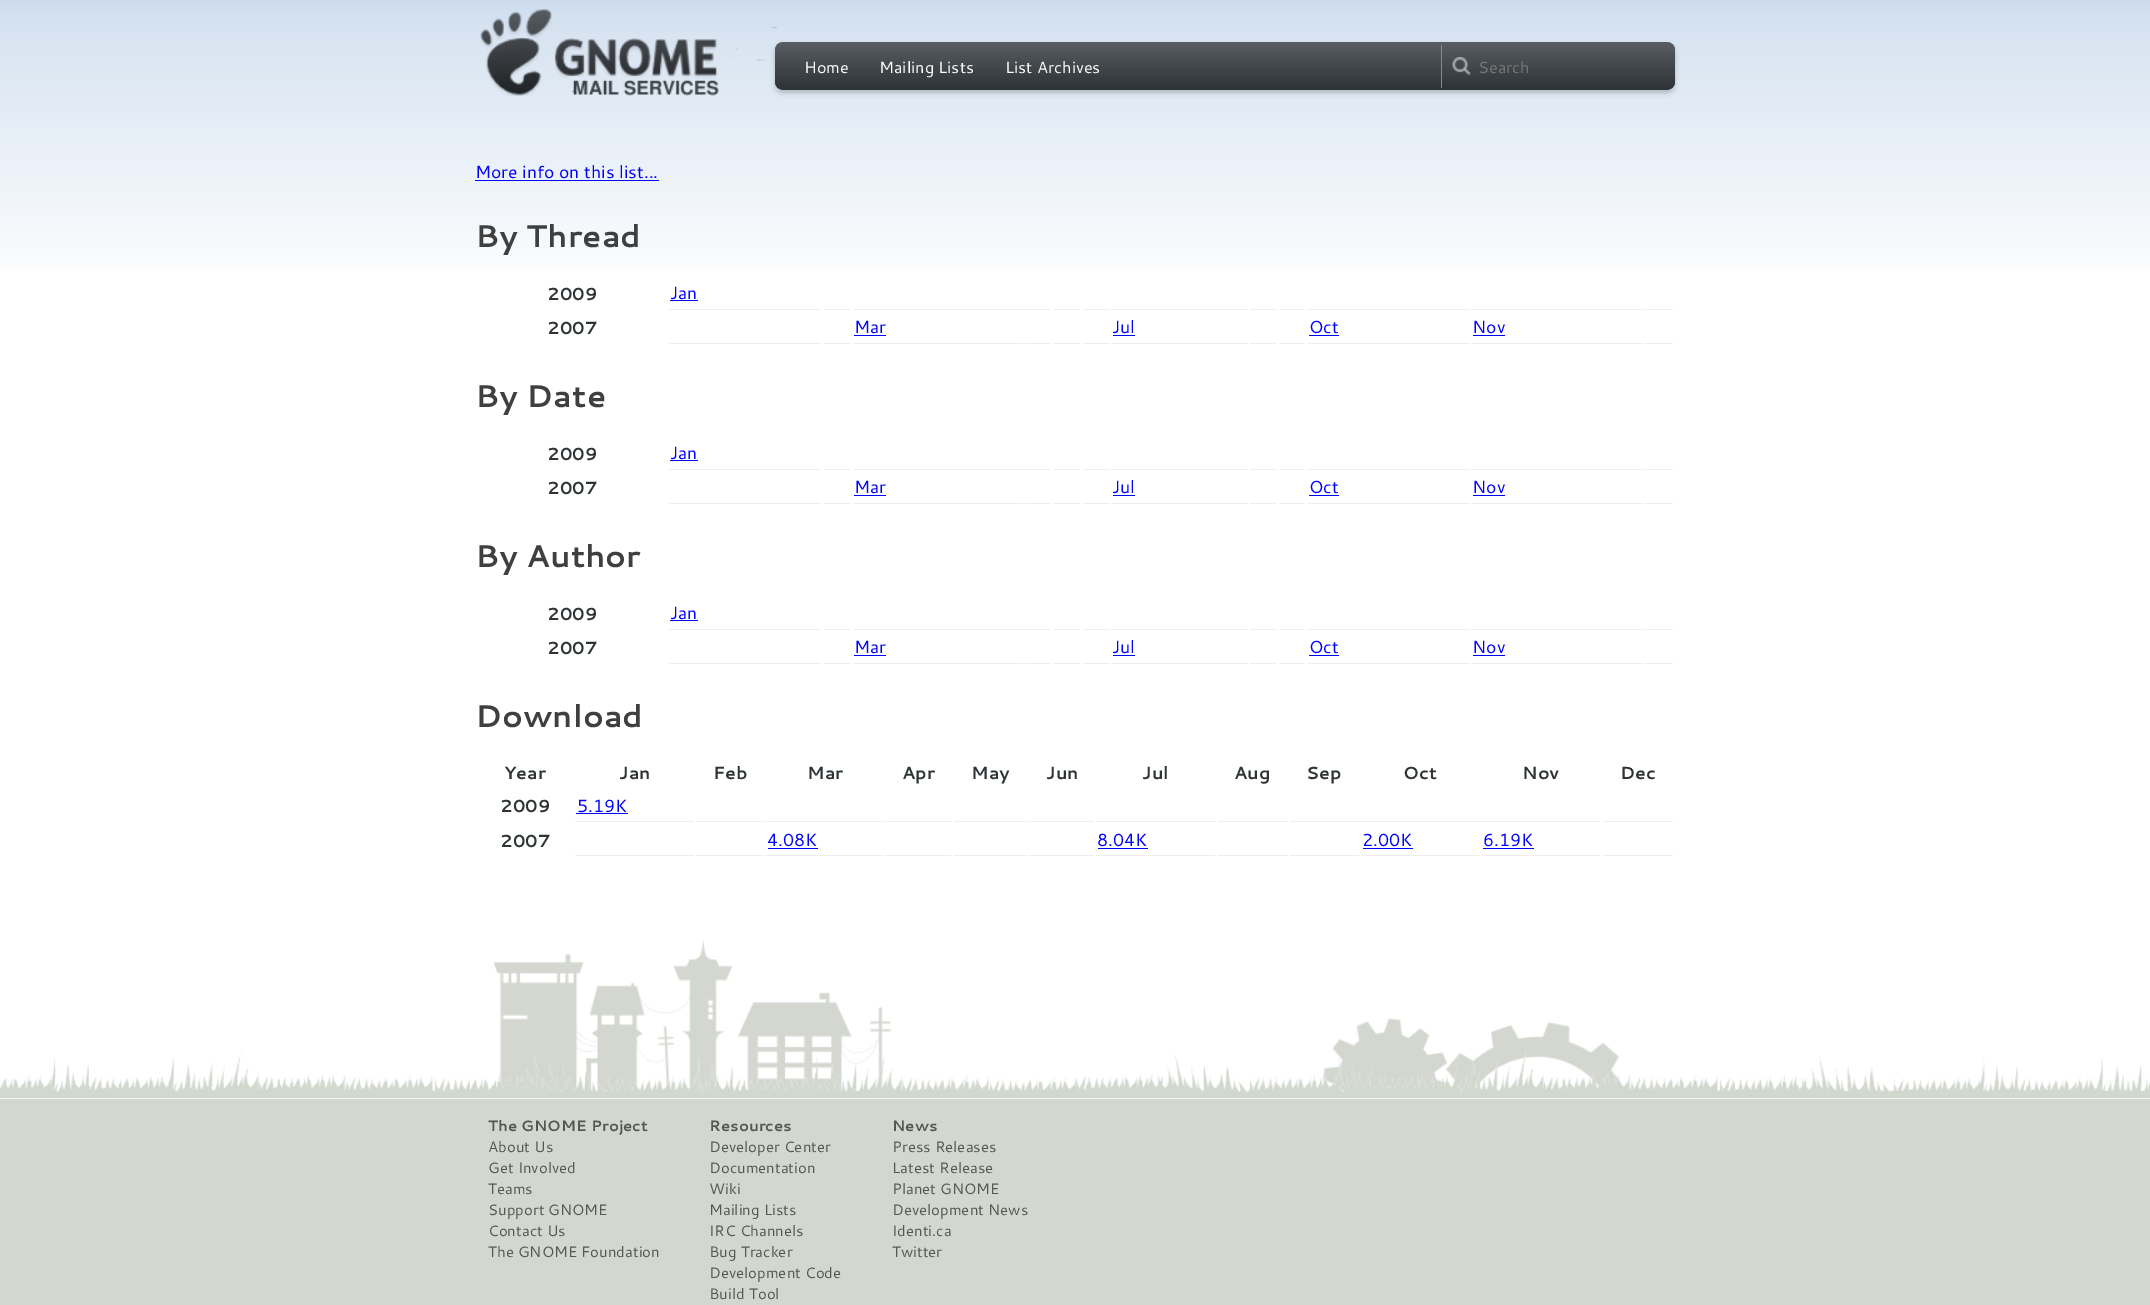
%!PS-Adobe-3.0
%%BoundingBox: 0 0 2150 1305
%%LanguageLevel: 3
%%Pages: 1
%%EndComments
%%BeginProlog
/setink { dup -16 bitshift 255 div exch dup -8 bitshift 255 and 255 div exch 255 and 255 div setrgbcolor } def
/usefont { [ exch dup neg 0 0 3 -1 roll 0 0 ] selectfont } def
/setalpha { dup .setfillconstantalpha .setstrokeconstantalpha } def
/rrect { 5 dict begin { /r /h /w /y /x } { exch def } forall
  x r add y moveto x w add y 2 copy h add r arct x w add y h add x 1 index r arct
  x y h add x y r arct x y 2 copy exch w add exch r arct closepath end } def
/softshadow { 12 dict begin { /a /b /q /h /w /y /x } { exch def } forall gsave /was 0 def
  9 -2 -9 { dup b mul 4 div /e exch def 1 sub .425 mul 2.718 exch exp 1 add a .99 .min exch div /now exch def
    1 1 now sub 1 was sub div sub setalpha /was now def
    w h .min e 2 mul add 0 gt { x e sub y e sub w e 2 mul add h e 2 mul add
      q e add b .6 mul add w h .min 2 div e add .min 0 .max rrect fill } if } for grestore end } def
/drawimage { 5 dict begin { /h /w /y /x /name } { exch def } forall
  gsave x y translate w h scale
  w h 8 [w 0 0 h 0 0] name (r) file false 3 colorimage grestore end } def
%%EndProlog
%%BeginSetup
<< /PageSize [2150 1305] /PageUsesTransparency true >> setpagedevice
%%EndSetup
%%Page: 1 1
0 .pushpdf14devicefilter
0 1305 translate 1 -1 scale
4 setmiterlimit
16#FFFFFF setink
0 0 2150 1305 rectfill
(img1.raw) 0 0 2150 270 drawimage
(img2.raw) 480 9 298 87 drawimage
16#000000 setink
775 45 900 48 8 2.5 0.2 softshadow
16#2E3436 setink
775 43 900 47 8 rrect fill
(img3.raw) 775 42 900 48 drawimage
/Cantarell-Regular 16.25 usefont
16#FFFFFF setink
[
    [(Home) 804 73]
    [(Mailing Lists) 879 73]
    [(List Archives) 1005 73]
] { aload pop moveto show } forall
(img4.raw) 1452 57 19 19 drawimage
16#888888 setink
1441 45 1 43 rectfill
16#757575 setink
1478 73 moveto (Search) show
/Cantarell-Regular 17.5 usefont
16#0000FF setink
475 178 moveto (More info on this list...) show
475 180 184 1 rectfill
/Cantarell-Bold 31.25 usefont
16#3F3F3F setink
475 247 moveto (By Thread) show
/Cantarell-Bold 17.5 usefont
16#2E3436 setink
547 300 moveto (2009) show
16#EEEEEC setink
669 309 152 1 rectfill
/Cantarell-Regular 17.5 usefont
16#0000FF setink
670 299 moveto (Jan) show
[
    [670 300 28 1 16#0000FF]
    [824 309 26 1 16#EEEEEC]
    [853 309 170 1 16#EEEEEC]
    [1025 309 26 1 16#EEEEEC]
    [1054 309 26 1 16#EEEEEC]
    [1083 309 26 1 16#EEEEEC]
    [1111 309 137 1 16#EEEEEC]
    [1250 309 26 1 16#EEEEEC]
    [1279 309 26 1 16#EEEEEC]
    [1308 309 161 1 16#EEEEEC]
    [1471 309 173 1 16#EEEEEC]
    [1646 309 27 1 16#EEEEEC]
] { aload pop setink rectfill } forall
/Cantarell-Bold 17.5 usefont
16#2E3436 setink
547 334 moveto (2007) show
16#EEEEEC setink
853 343 170 1 rectfill
/Cantarell-Regular 17.5 usefont
16#0000FF setink
854 333 moveto (Mar) show
854 335 32 1 rectfill
16#EEEEEC setink
1111 343 137 1 rectfill
16#0000FF setink
1112 333 moveto (Jul) show
1113 335 22 1 rectfill
16#EEEEEC setink
1308 343 161 1 rectfill
16#0000FF setink
1309 333 moveto (Oct) show
1309 335 30 1 rectfill
16#EEEEEC setink
1471 343 173 1 rectfill
16#0000FF setink
1472 333 moveto (Nov) show
[
    [1473 335 32 1 16#0000FF]
    [669 343 152 1 16#EEEEEC]
    [824 343 26 1 16#EEEEEC]
    [1025 343 26 1 16#EEEEEC]
    [1054 343 26 1 16#EEEEEC]
    [1083 343 26 1 16#EEEEEC]
    [1250 343 26 1 16#EEEEEC]
    [1279 343 26 1 16#EEEEEC]
    [1646 343 27 1 16#EEEEEC]
] { aload pop setink rectfill } forall
/Cantarell-Bold 31.25 usefont
16#3F3F3F setink
475 407 moveto (By Date) show
/Cantarell-Bold 17.5 usefont
16#2E3436 setink
547 460 moveto (2009) show
16#EEEEEC setink
669 469 152 1 rectfill
/Cantarell-Regular 17.5 usefont
16#0000FF setink
670 459 moveto (Jan) show
[
    [670 460 28 1 16#0000FF]
    [824 469 26 1 16#EEEEEC]
    [853 469 170 1 16#EEEEEC]
    [1025 469 26 1 16#EEEEEC]
    [1054 469 26 1 16#EEEEEC]
    [1083 469 26 1 16#EEEEEC]
    [1111 469 137 1 16#EEEEEC]
    [1250 469 26 1 16#EEEEEC]
    [1279 469 26 1 16#EEEEEC]
    [1308 469 161 1 16#EEEEEC]
    [1471 469 173 1 16#EEEEEC]
    [1646 469 27 1 16#EEEEEC]
] { aload pop setink rectfill } forall
/Cantarell-Bold 17.5 usefont
16#2E3436 setink
547 494 moveto (2007) show
16#EEEEEC setink
853 503 170 1 rectfill
/Cantarell-Regular 17.5 usefont
16#0000FF setink
854 493 moveto (Mar) show
854 495 32 1 rectfill
16#EEEEEC setink
1111 503 137 1 rectfill
16#0000FF setink
1112 493 moveto (Jul) show
1113 495 22 1 rectfill
16#EEEEEC setink
1308 503 161 1 rectfill
16#0000FF setink
1309 493 moveto (Oct) show
1309 495 30 1 rectfill
16#EEEEEC setink
1471 503 173 1 rectfill
16#0000FF setink
1472 493 moveto (Nov) show
[
    [1473 495 32 1 16#0000FF]
    [669 503 152 1 16#EEEEEC]
    [824 503 26 1 16#EEEEEC]
    [1025 503 26 1 16#EEEEEC]
    [1054 503 26 1 16#EEEEEC]
    [1083 503 26 1 16#EEEEEC]
    [1250 503 26 1 16#EEEEEC]
    [1279 503 26 1 16#EEEEEC]
    [1646 503 27 1 16#EEEEEC]
] { aload pop setink rectfill } forall
/Cantarell-Bold 31.25 usefont
16#3F3F3F setink
475 567 moveto (By Author) show
/Cantarell-Bold 17.5 usefont
16#2E3436 setink
547 620 moveto (2009) show
16#EEEEEC setink
669 629 152 1 rectfill
/Cantarell-Regular 17.5 usefont
16#0000FF setink
670 619 moveto (Jan) show
[
    [670 620 28 1 16#0000FF]
    [824 629 26 1 16#EEEEEC]
    [853 629 170 1 16#EEEEEC]
    [1025 629 26 1 16#EEEEEC]
    [1054 629 26 1 16#EEEEEC]
    [1083 629 26 1 16#EEEEEC]
    [1111 629 137 1 16#EEEEEC]
    [1250 629 26 1 16#EEEEEC]
    [1279 629 26 1 16#EEEEEC]
    [1308 629 161 1 16#EEEEEC]
    [1471 629 173 1 16#EEEEEC]
    [1646 629 27 1 16#EEEEEC]
] { aload pop setink rectfill } forall
/Cantarell-Bold 17.5 usefont
16#2E3436 setink
547 654 moveto (2007) show
16#EEEEEC setink
853 663 170 1 rectfill
/Cantarell-Regular 17.5 usefont
16#0000FF setink
854 653 moveto (Mar) show
854 655 32 1 rectfill
16#EEEEEC setink
1111 663 137 1 rectfill
16#0000FF setink
1112 653 moveto (Jul) show
1113 655 22 1 rectfill
16#EEEEEC setink
1308 663 161 1 rectfill
16#0000FF setink
1309 653 moveto (Oct) show
1309 655 30 1 rectfill
16#EEEEEC setink
1471 663 173 1 rectfill
16#0000FF setink
1472 653 moveto (Nov) show
[
    [1473 655 32 1 16#0000FF]
    [669 663 152 1 16#EEEEEC]
    [824 663 26 1 16#EEEEEC]
    [1025 663 26 1 16#EEEEEC]
    [1054 663 26 1 16#EEEEEC]
    [1083 663 26 1 16#EEEEEC]
    [1250 663 26 1 16#EEEEEC]
    [1279 663 26 1 16#EEEEEC]
    [1646 663 27 1 16#EEEEEC]
] { aload pop setink rectfill } forall
/Cantarell-Bold 31.25 usefont
16#3F3F3F setink
475 727 moveto (Download) show
/Cantarell-Bold 17.5 usefont
16#2E3436 setink
[
    [(Year) 504 779]
    [(Jan) 619 779]
    [(Feb) 713 779]
    [(Mar) 807 779]
    [(Apr) 902 779]
    [(May) 971 779]
    [(Jun) 1046 779]
    [(Jul) 1142 779]
    [(Aug) 1234 779]
    [(Sep) 1306 779]
    [(Oct) 1403 779]
    [(Nov) 1522 779]
    [(Dec) 1620 779]
    [(2009) 500 812]
] { aload pop moveto show } forall
16#EEEEEC setink
575 821 119 1 rectfill
/Cantarell-Regular 17.5 usefont
16#0000FF setink
577 812 moveto (5.19K) show
[
    [576 813 52 1 16#0000FF]
    [696 821 68 1 16#EEEEEC]
    [766 821 118 1 16#EEEEEC]
    [886 821 65 1 16#EEEEEC]
    [954 821 74 1 16#EEEEEC]
    [1030 821 64 1 16#EEEEEC]
    [1096 821 119 1 16#EEEEEC]
    [1218 821 70 1 16#EEEEEC]
    [1290 821 69 1 16#EEEEEC]
    [1361 821 118 1 16#EEEEEC]
    [1481 821 119 1 16#EEEEEC]
    [1603 821 70 1 16#EEEEEC]
] { aload pop setink rectfill } forall
/Cantarell-Bold 17.5 usefont
16#2E3436 setink
500 847 moveto (2007) show
16#EEEEEC setink
766 855 118 1 rectfill
/Cantarell-Regular 17.5 usefont
16#0000FF setink
767 846 moveto (4.08K) show
768 848 50 1 rectfill
16#EEEEEC setink
1096 855 119 1 rectfill
16#0000FF setink
1097 846 moveto (8.04K) show
1098 848 50 1 rectfill
16#EEEEEC setink
1361 855 118 1 rectfill
16#0000FF setink
1362 846 moveto (2.00K) show
1363 848 50 1 rectfill
16#EEEEEC setink
1481 855 119 1 rectfill
16#0000FF setink
1483 846 moveto (6.19K) show
[
    [1483 848 51 1 16#0000FF]
    [575 855 119 1 16#EEEEEC]
    [696 855 68 1 16#EEEEEC]
    [886 855 65 1 16#EEEEEC]
    [954 855 74 1 16#EEEEEC]
    [1030 855 64 1 16#EEEEEC]
    [1218 855 70 1 16#EEEEEC]
    [1290 855 69 1 16#EEEEEC]
    [1603 855 70 1 16#EEEEEC]
] { aload pop setink rectfill } forall
(img5.raw) 493 939 1149 152 drawimage
(img6.raw) 0 1051 2150 48 drawimage
16#D3D7CF setink
0 1099 2150 206 rectfill
/Cantarell-Bold 15 usefont
16#555753 setink
488 1131 moveto (The GNOME Project) show
/Cantarell-Regular 15 usefont
[
    [(About Us) 488 1152]
    [(Get Involved) 488 1173]
    [(Teams) 488 1194]
    [(Support GNOME) 488 1215]
    [(Contact Us) 488 1236]
    [(The GNOME Foundation) 488 1257]
] { aload pop moveto show } forall
/Cantarell-Bold 15 usefont
709 1131 moveto (Resources) show
/Cantarell-Regular 15 usefont
[
    [(Developer Center) 709 1152]
    [(Documentation) 709 1173]
    [(Wiki) 709 1194]
    [(Mailing Lists) 709 1215]
    [(IRC Channels) 709 1236]
    [(Bug Tracker) 709 1257]
    [(Development Code) 709 1278]
    [(Build Tool) 709 1299]
] { aload pop moveto show } forall
/Cantarell-Bold 15 usefont
892 1131 moveto (News) show
/Cantarell-Regular 15 usefont
[
    [(Press Releases) 892 1152]
    [(Latest Release) 892 1173]
    [(Planet GNOME) 892 1194]
    [(Development News) 892 1215]
    [(Identi.ca) 892 1236]
    [(Twitter) 892 1257]
] { aload pop moveto show } forall
.poppdf14devicefilter showpage
%%EOF
